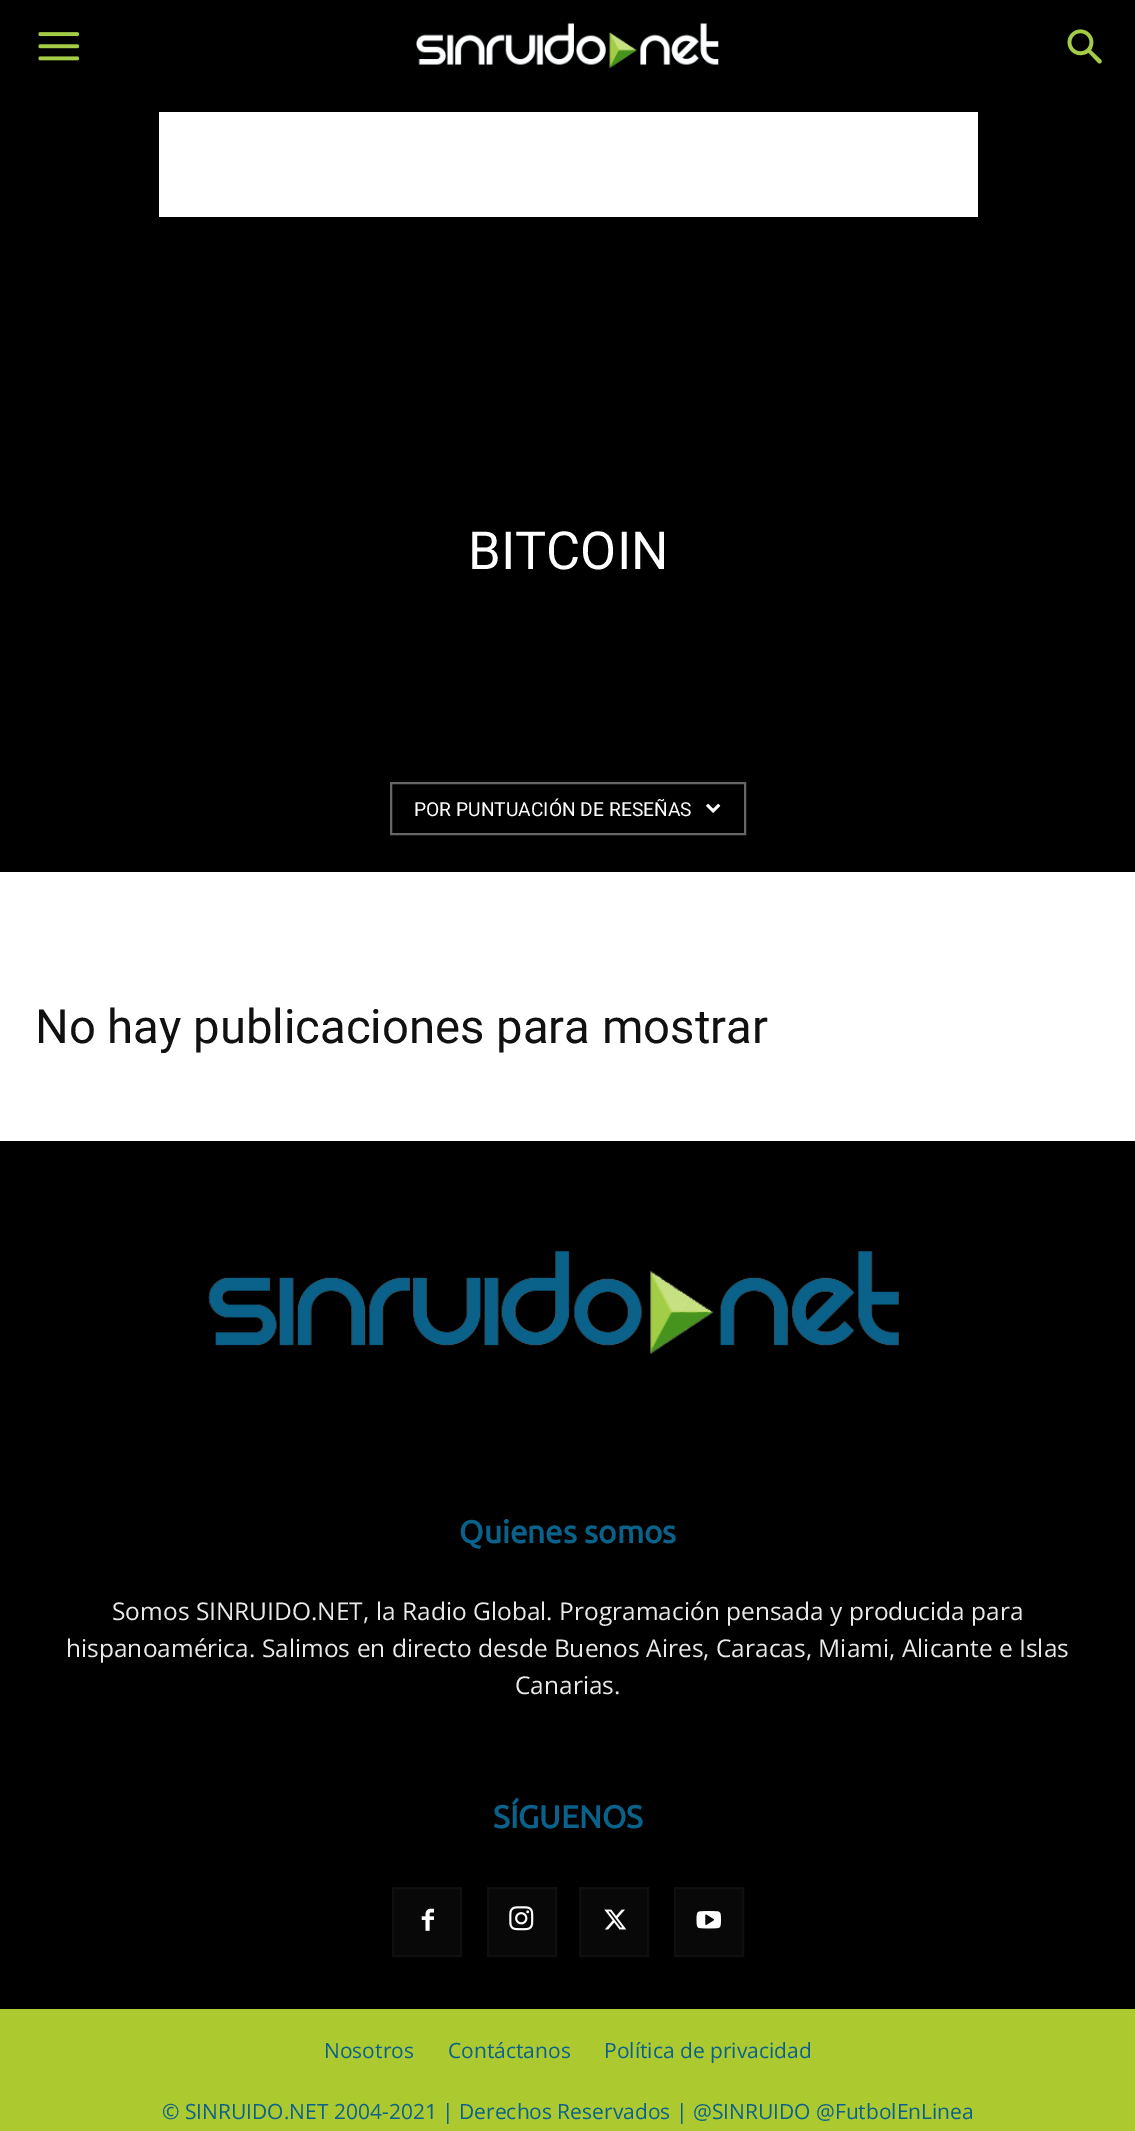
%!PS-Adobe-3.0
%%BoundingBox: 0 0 1135 2131
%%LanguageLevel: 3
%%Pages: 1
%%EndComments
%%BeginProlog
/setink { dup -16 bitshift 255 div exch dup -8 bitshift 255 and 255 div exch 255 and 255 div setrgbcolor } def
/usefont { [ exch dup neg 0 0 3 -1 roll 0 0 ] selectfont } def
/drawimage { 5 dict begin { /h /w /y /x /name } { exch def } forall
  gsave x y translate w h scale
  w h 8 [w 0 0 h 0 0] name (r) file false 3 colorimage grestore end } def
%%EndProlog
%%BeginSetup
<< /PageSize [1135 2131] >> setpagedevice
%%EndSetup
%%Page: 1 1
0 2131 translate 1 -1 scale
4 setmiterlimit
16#000000 setink
0 0 1135 2131 rectfill
(img1.raw) 38 32 41 29 drawimage
(img2.raw) 416 23 303 46 drawimage
(img3.raw) 1067 29 35 35 drawimage
16#FFFFFF setink
159 112 819 105 rectfill
/Roboto-Regular 52.5 usefont
468 569 moveto (BITCOIN) show
16#666666 setink
2 setlinewidth
391 783 354 51 rectstroke
/Roboto-Regular 19.25 usefont
16#FFFFFF setink
414 816 moveto (POR PUNTUACIÓN DE RESEÑAS) show
(img4.raw) 706 803 15 10 drawimage
0 872 1135 269 rectfill
/Roboto-Regular 47.25 usefont
16#111111 setink
35 1043 moveto (No hay publicaciones para mostrar) show
(img5.raw) 208 1251 691 103 drawimage
/Ubuntu-Bold 31.5 usefont
16#0A628B setink
459 1543 moveto (Quienes somos) show
/OpenSans-Regular 24.5 usefont
16#EAEAEA setink
[
    [(Somos SINRUIDO.NET, la Radio Global. Programación pensada y producida para) 112 1620]
    [(hispanoamérica. Salimos en directo desde Buenos Aires, Caracas, Miami, Alicante e Islas) 66 1657]
    [(Canarias.) 515 1694]
] { aload pop moveto show } forall
/Ubuntu-Bold 31.5 usefont
16#0A628B setink
493 1828 moveto (SÍGUENOS) show
16#080808 setink
394 1889 66 66 rectfill
(img6.raw) 421 1908 13 23 drawimage
16#0F0F0F setink
393 1888 68 68 rectstroke
16#080808 setink
489 1889 66 66 rectfill
(img7.raw) 509 1906 25 25 drawimage
16#0F0F0F setink
488 1888 68 68 rectstroke
16#080808 setink
581 1889 66 66 rectfill
(img8.raw) 604 1909 23 21 drawimage
16#0F0F0F setink
580 1888 68 68 rectstroke
16#080808 setink
676 1889 66 66 rectfill
(img9.raw) 696 1911 25 18 drawimage
16#0F0F0F setink
675 1888 68 68 rectstroke
16#ACCA30 setink
0 2009 1135 122 rectfill
/OpenSans-Regular 21 usefont
16#0A628B setink
[
    [(Nosotros) 324 2058]
    [(Contáctanos) 448 2058]
    [(Política de privacidad) 604 2058]
    [(© SINRUIDO.NET 2004-2021 | Derechos Reservados | @SINRUIDO @FutbolEnLinea) 162 2119]
] { aload pop moveto show } forall
showpage
%%EOF
